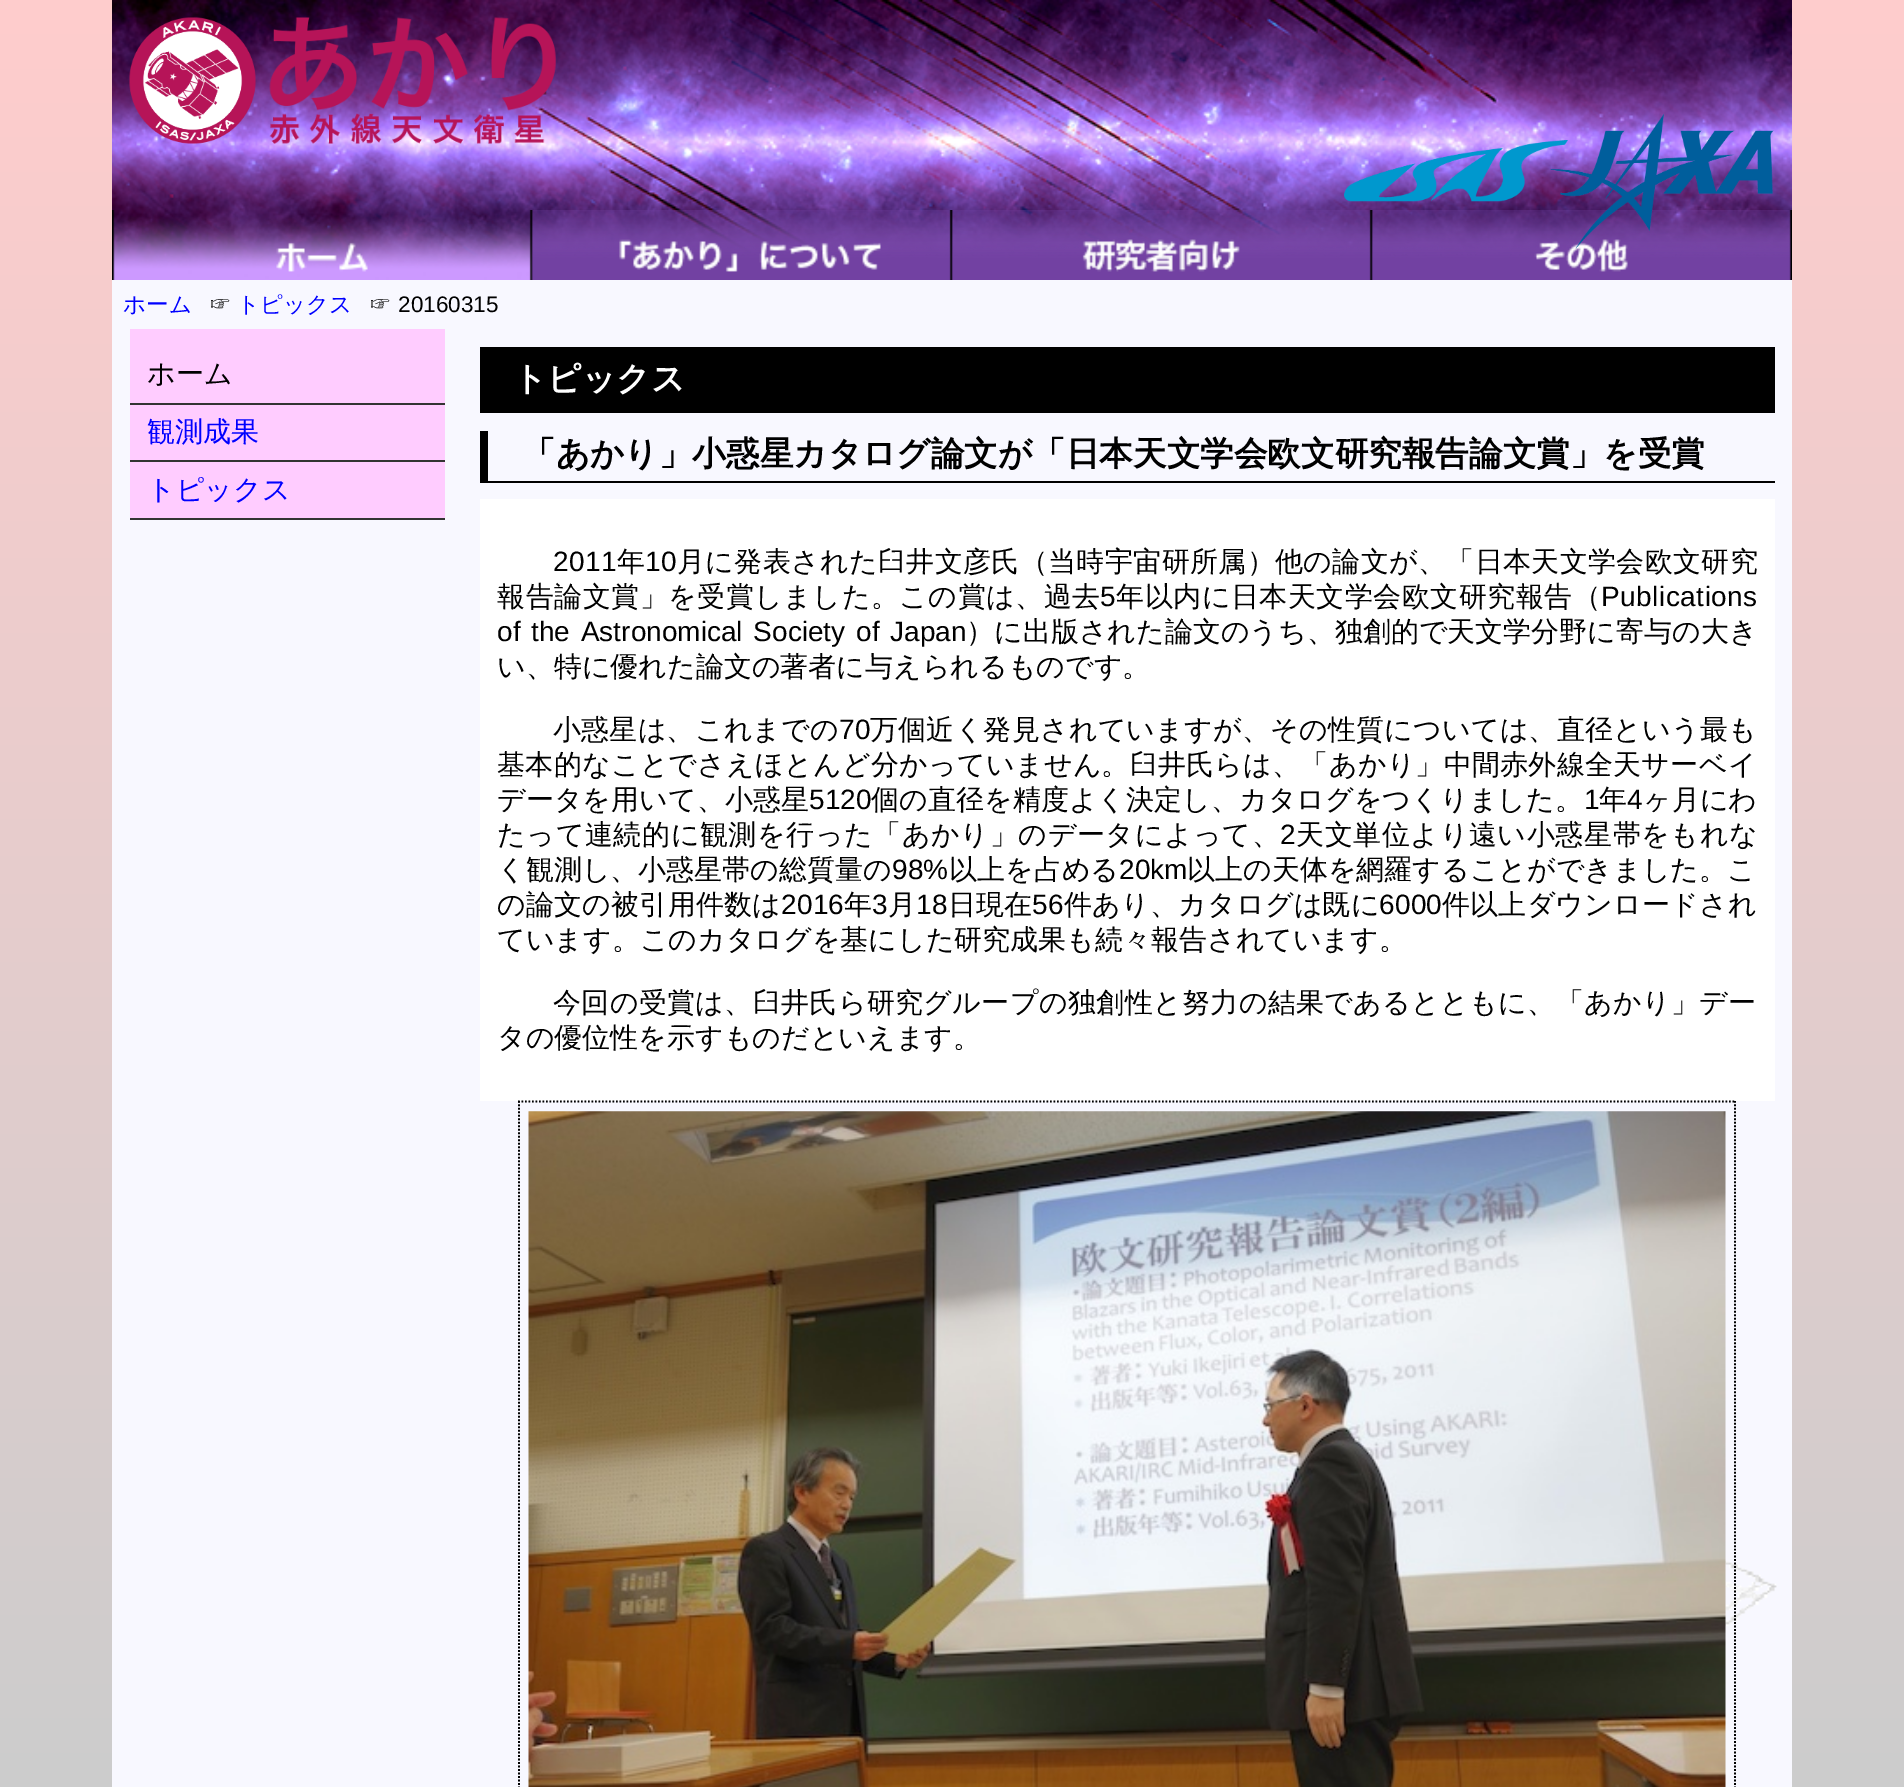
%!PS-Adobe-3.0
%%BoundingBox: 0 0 1904 1787
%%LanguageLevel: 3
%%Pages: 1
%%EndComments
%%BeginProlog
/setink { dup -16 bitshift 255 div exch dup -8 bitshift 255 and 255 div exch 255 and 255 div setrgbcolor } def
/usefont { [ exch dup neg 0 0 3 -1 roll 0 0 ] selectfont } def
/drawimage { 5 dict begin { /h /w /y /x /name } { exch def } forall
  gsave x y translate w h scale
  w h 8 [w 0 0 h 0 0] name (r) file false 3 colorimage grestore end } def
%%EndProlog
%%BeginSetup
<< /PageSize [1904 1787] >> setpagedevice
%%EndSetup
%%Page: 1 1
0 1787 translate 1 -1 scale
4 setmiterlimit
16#FFFFFF setink
0 0 1904 1787 rectfill
gsave 0 0 moveto 1904 0 lineto 1904 1787 lineto 0 1787 lineto closepath clip newpath
<< /ShadingType 2 /ColorSpace /DeviceRGB /Coords [0 0 0 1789] /Extend [true true] /Function << /FunctionType 2 /Domain [0 1] /C0 [1 0.8 0.8] /C1 [0.8 0.8 0.8] /N 1 >> >> shfill grestore
16#F8F8FF setink
112 280 1680 1507 rectfill
(img1.raw) 1725 1560 52 67 drawimage
(img2.raw) 112 0 1680 269 drawimage
(img3.raw) 129 17 127 127 drawimage
(img4.raw) 269 17 287 127 drawimage
(img5.raw) 1344 140 224 62 drawimage
(img7.raw) 112 210 1680 70 drawimage
(img10.raw) 1372 210 419 70 drawimage
(img6.raw) 1550 113 224 136 drawimage
(img8.raw) 532 210 420 70 drawimage
(img9.raw) 952 210 420 70 drawimage
/WenQuanYiZenHei-Medium 22.5 usefont
16#0000FF setink
123 312 moveto (ホーム) show
16#000000 setink
209 312 moveto (☞) show
16#0000FF setink
237 312 moveto (トピックス) show
16#000000 setink
369 312 moveto (☞) show
/LiberationSans-Regular 22.5 usefont
398 312 moveto (20160315) show
16#FFCCFF setink
130 329 315 189 rectfill
16#333333 setink
130 403 315 2 rectfill
/WenQuanYiZenHei-Medium 28 usefont
16#000000 setink
147 383 moveto (ホーム) show
16#333333 setink
130 460 315 2 rectfill
16#0000FF setink
147 441 moveto (観測成果) show
16#333333 setink
130 518 315 2 rectfill
16#0000FF setink
147 499 moveto (トピックス) show
16#000000 setink
480 347 1295 66 rectfill
/WenQuanYiZenHei-Bold 33.6 usefont
16#FFFFFF setink
513 390 moveto (トピックス) show
16#000000 setink
480 481 1295 2 rectfill
480 431 8 52 rectfill
522 465 moveto (「あかり」小惑星カタログ論文が「日本天文学会欧文研究報告論文賞」を受賞) show
16#FFFFFF setink
480 499 1295 602 rectfill
/LiberationSans-Regular 28 usefont
16#000000 setink
553 571 moveto 0.35 0 (2011) ashow
/WenQuanYiZenHei-Medium 28 usefont
617 571 moveto 0.35 0 (年) ashow
/LiberationSans-Regular 28 usefont
645 571 moveto 0.35 0 (10) ashow
/WenQuanYiZenHei-Medium 28 usefont
677 571 moveto 0.35 0 (月に発表された臼井文彦氏（当時宇宙研所属）他の論文が、「日本天文学会欧文研究) ashow
497 606 moveto 0.5 0 (報告論文賞」を受賞しました。この賞は、過去) ashow
/LiberationSans-Regular 28 usefont
1100 606 moveto 0.5 0 (5) ashow
/WenQuanYiZenHei-Medium 28 usefont
1116 606 moveto 0.5 0 (年以内に日本天文学会欧文研究報告（) ashow
/LiberationSans-Regular 28 usefont
1601 606 moveto 0.5 0 (Publications) ashow
497 641 moveto 3 0 32 (of the Astronomical Society of Japan) widthshow
/WenQuanYiZenHei-Medium 28 usefont
966 641 moveto (）に出版された論文のうち、独創的で天文学分野に寄与の大き) show
497 676 moveto (い、特に優れた論文の著者に与えられるものです。) show
553 739 moveto 0.2 0 (小惑星は、これまでの) ashow
/LiberationSans-Regular 28 usefont
839 739 moveto 0.2 0 (70) ashow
/WenQuanYiZenHei-Medium 28 usefont
870 739 moveto 0.2 0 (万個近く発見されていますが、その性質については、直径という最も) ashow
497 774 moveto 0.25 0 (基本的なことでさえほとんど分かっていません。臼井氏らは、「あかり」中間赤外線全天サーベイ) ashow
497 809 moveto 0.05 0 (データを用いて、小惑星) ashow
/LiberationSans-Regular 28 usefont
809 809 moveto 0.05 0 (5120) ashow
/WenQuanYiZenHei-Medium 28 usefont
871 809 moveto 0.05 0 (個の直径を精度よく決定し、カタログをつくりました。) ashow
/LiberationSans-Regular 28 usefont
1584 809 moveto 0.05 0 (1) ashow
/WenQuanYiZenHei-Medium 28 usefont
1599 809 moveto 0.05 0 (年) ashow
/LiberationSans-Regular 28 usefont
1627 809 moveto 0.05 0 (4) ashow
/WenQuanYiZenHei-Medium 28 usefont
1643 809 moveto 0.05 0 (ヶ月にわ) ashow
497 844 moveto 0.6 0 (たって連続的に観測を行った「あかり」のデータによって、) ashow
/LiberationSans-Regular 28 usefont
1280 844 moveto 0.6 0 (2) ashow
/WenQuanYiZenHei-Medium 28 usefont
1296 844 moveto 0.6 0 (天文単位より遠い小惑星帯をもれな) ashow
497 879 moveto (く観測し、小惑星帯の総質量の) show
/LiberationSans-Regular 28 usefont
892 879 moveto (98%) show
/WenQuanYiZenHei-Medium 28 usefont
949 879 moveto (以上を占める) show
/LiberationSans-Regular 28 usefont
1119 879 moveto (20km) show
/WenQuanYiZenHei-Medium 28 usefont
1187 879 moveto (以上の天体を網羅することができました。こ) show
497 914 moveto 0.2 0 (の論文の被引用件数は) ashow
/LiberationSans-Regular 28 usefont
781 914 moveto 0.2 0 (2016) ashow
/WenQuanYiZenHei-Medium 28 usefont
844 914 moveto 0.2 0 (年) ashow
/LiberationSans-Regular 28 usefont
872 914 moveto 0.2 0 (3) ashow
/WenQuanYiZenHei-Medium 28 usefont
888 914 moveto 0.2 0 (月) ashow
/LiberationSans-Regular 28 usefont
916 914 moveto 0.2 0 (18) ashow
/WenQuanYiZenHei-Medium 28 usefont
948 914 moveto 0.2 0 (日現在) ashow
/LiberationSans-Regular 28 usefont
1032 914 moveto 0.2 0 (56) ashow
/WenQuanYiZenHei-Medium 28 usefont
1064 914 moveto 0.2 0 (件あり、カタログは既に) ashow
/LiberationSans-Regular 28 usefont
1379 914 moveto 0.2 0 (6000) ashow
/WenQuanYiZenHei-Medium 28 usefont
1442 914 moveto 0.2 0 (件以上ダウンロードされ) ashow
497 949 moveto (ています。このカタログを基にした研究成果も続々報告されています。) show
553 1012 moveto 0.35 0 (今回の受賞は、臼井氏ら研究グループの独創性と努力の結果であるとともに、「あかり」デー) ashow
497 1047 moveto (タの優位性を示すものだといえます。) show
1.8 setlinewidth
[1.75 1.75] 0 setdash
518 1101.5 moveto 1736 1101.5 lineto stroke
1735 1101 moveto 1735 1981 lineto stroke
519 1101 moveto 519 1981 lineto stroke
(img11.raw) 528 1111 1198 676 drawimage
showpage
%%EOF
